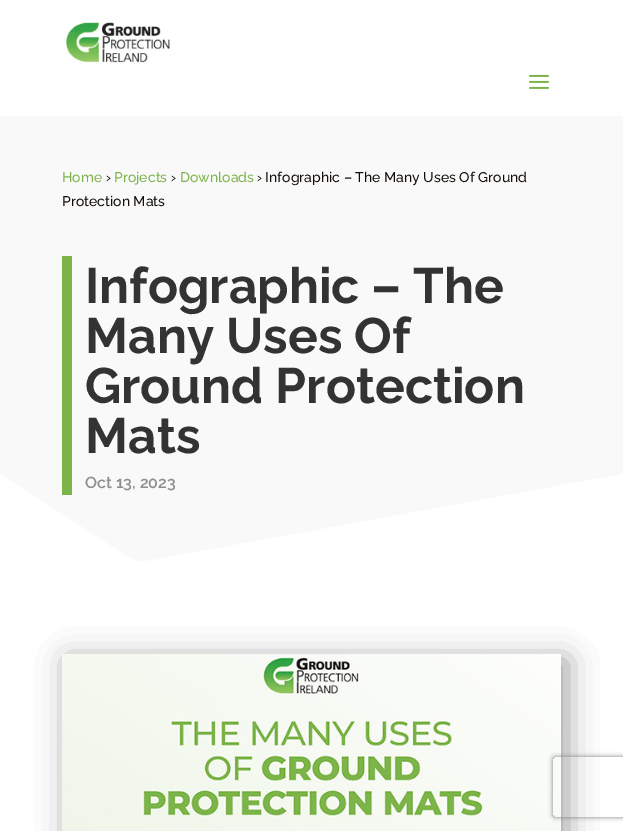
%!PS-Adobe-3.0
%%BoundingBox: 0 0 623 831
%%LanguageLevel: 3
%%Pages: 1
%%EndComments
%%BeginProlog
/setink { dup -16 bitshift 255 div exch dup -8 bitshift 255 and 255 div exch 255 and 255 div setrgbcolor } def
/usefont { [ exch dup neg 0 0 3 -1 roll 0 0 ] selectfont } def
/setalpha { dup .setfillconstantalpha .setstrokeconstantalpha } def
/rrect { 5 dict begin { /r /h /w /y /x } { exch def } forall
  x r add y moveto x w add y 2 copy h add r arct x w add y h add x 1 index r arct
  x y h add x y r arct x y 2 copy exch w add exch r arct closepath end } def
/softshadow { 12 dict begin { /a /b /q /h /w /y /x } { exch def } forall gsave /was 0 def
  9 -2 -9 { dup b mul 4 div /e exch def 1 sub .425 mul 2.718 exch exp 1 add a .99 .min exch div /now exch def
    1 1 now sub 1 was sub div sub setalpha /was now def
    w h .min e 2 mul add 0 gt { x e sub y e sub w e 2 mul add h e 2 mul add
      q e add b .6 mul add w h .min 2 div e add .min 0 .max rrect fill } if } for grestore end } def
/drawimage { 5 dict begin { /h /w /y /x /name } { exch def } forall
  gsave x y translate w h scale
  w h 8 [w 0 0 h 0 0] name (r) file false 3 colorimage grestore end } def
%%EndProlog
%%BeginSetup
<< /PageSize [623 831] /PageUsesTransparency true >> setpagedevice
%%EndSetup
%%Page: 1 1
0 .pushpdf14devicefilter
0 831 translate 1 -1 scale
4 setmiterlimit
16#FFFFFF setink
0 0 623 831 rectfill
(img1.raw) 64 20 106 44 drawimage
(img2.raw) 529 74 20 15 drawimage
16#F9F9F9 setink
0 116 623 446 rectfill
/Raleway-Medium 14 usefont
16#7DB44A setink
62 182 moveto (Home) show
16#120D07 setink
106 182 moveto (›) show
16#7DB44A setink
114 182 moveto (Projects) show
16#120D07 setink
171 182 moveto (›) show
16#7DB44A setink
180 182 moveto (Downloads) show
16#120D07 setink
257 182 moveto (› Infographic – The Many Uses Of Ground) show
62 206 moveto (Protection Mats) show
16#FFFFFF setink
0 474 moveto 128 557 lineto 134 561 140 562 147 561 curveto 623 474 lineto 623 574 lineto 0 574 lineto closepath fill
16#7DB44A setink
62 256 10 239 rectfill
/Raleway-Bold 49.75 usefont
16#333333 setink
[
    [(Infographic – The) 85 303]
    [(Many Uses Of) 85 353]
    [(Ground Protection) 85 403]
    [(Mats) 85 453]
] { aload pop moveto show } forall
/Raleway-SemiBold 16 usefont
16#8F8D8D setink
85 488 moveto (Oct 13, 2023) show
16#000000 setink
68 660 499 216 0 15 0.2 softshadow
68 660 499 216 0 15 0.2 softshadow
(img3.raw) 62 654 499 177 drawimage
gsave
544 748 moveto 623 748 lineto 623 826 lineto 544 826 lineto closepath 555 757 moveto 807 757 lineto 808 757 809 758 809 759 curveto 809 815 lineto 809 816 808 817 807 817 curveto 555 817 lineto 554 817 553 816 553 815 curveto 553 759 lineto 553 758 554 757 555 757 curveto closepath eoclip newpath
16#808080 setink
553 757 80 60 2 2.5 1 softshadow
grestore
.poppdf14devicefilter showpage
%%EOF
